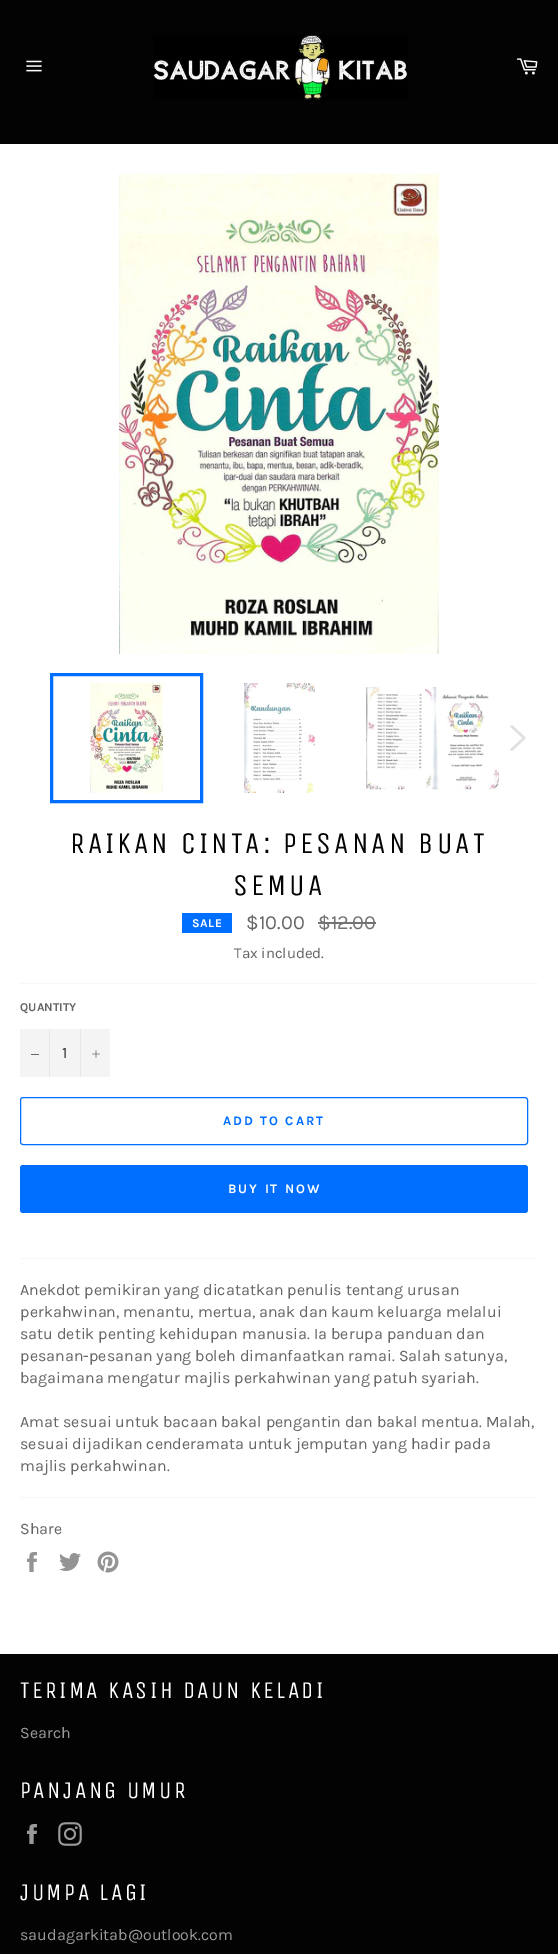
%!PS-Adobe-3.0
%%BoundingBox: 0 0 558 1954
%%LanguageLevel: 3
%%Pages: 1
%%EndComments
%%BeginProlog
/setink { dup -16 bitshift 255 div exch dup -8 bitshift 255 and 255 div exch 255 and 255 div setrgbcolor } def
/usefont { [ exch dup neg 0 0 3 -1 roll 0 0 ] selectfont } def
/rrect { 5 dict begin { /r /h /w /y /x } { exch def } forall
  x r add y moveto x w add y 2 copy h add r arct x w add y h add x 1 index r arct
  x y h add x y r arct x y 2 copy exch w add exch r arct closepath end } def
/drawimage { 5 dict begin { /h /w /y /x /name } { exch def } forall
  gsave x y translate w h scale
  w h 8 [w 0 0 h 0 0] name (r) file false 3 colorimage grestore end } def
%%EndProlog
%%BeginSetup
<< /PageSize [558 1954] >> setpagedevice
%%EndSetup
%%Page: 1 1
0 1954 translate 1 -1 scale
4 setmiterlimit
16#030303 setink
0 0 558 1954 rectfill
(img1.raw) 26 60 16 12 drawimage
(img2.raw) 153 35 255 65 drawimage
(img3.raw) 516 58 22 17 drawimage
16#FFFFFF setink
0 144 558 1510 rectfill
(img4.raw) 119 174 320 480 drawimage
(img5.raw) 90 683 73 110 drawimage
16#006EFF setink
3 setlinewidth
51.5 674.5 150 127 rectstroke
(img6.raw) 244 683 71 110 drawimage
(img7.raw) 366 687 133 103 drawimage
16#E0E0E0 setink
510 726.5 moveto 512 725 lineto 526 738 lineto 512 751 lineto 510 749.5 lineto 522.5 738 lineto closepath fill
/UnicaOne-Regular 30 usefont
16#030303 setink
70 853 moveto 3 0 (RAIKAN CINTA: PESANAN BUAT) ashow
233 895 moveto 3 0 (SEMUA) ashow
16#006EFF setink
182 913 50 20 rectfill
/Karla-Bold 12 usefont
16#FFFFFF setink
192 927 moveto 0.5 0 (SALE) ashow
/Karla-Regular 20 usefont
16#666666 setink
246 929 moveto ($10.00) show
16#737373 setink
318 929 moveto ($12.00) show
318 922 58 2 rectfill
/Karla-Regular 15 usefont
16#666666 setink
234 958 moveto (Tax included.) show
16#F7F7F7 setink
20 983 518 1 rectfill
/Karla-Bold 12 usefont
16#666666 setink
20 1011 moveto (QUANTITY) show
[
    [20 1029 90 48 16#F4F4F4]
    [49 1029 1 48 16#E7E7E7]
    [31 1054 8 1 16#666666]
] { aload pop setink rectfill } forall
/Karla-Regular 16 usefont
16#333333 setink
62 1058 moveto (1) show
16#E7E7E7 setink
80 1029 1 48 rectfill
(img8.raw) 92 1050 8 8 drawimage
16#006EFF setink
1 setlinewidth
20.5 1097.5 507 47 2.5 rrect stroke
/Karla-Bold 13 usefont
223 1125 moveto 2 0 (ADD TO CART) ashow
20 1165 508 48 3 rrect fill
16#FFFFFF setink
228 1193 moveto 2 0 (BUY IT NOW) ashow
16#F7F7F7 setink
20 1258 518 1 rectfill
/Karla-Regular 16 usefont
16#666666 setink
[
    [(Anekdot pemikiran yang dicatatkan penulis tentang urusan) 20 1295]
    [(perkahwinan, menantu, mertua, anak dan kaum keluarga melalui) 20 1317]
    [(satu detik penting kehidupan manusia. Ia berupa panduan dan) 20 1339]
    [(pesanan-pesanan yang boleh dimanfaatkan ramai. Salah satunya,) 20 1361]
    [(bagaimana mengatur majlis perkahwinan yang patuh syariah.) 20 1383]
    [(Amat sesuai untuk bacaan bakal pengantin dan bakal mentua. Malah,) 20 1427]
    [(sesuai dijadikan cenderamata untuk jemputan yang hadir pada) 20 1449]
    [(majlis perkahwinan.) 20 1471]
] { aload pop moveto show } forall
16#F7F7F7 setink
20 1497 518 1 rectfill
16#666666 setink
20 1534 moveto (Share) show
(img9.raw) 27 1552 10 20 drawimage
(img10.raw) 59 1553 22 18 drawimage
(img11.raw) 97 1551 22 22 drawimage
/UnicaOne-Regular 24 usefont
16#FFFFFF setink
20 1698 moveto 2.4 0 (TERIMA KASIH DAUN KELADI) ashow
/Karla-Regular 16 usefont
16#9A9A9A setink
20 1738 moveto (Search) show
/UnicaOne-Regular 24 usefont
16#FFFFFF setink
20 1798 moveto 2.4 0 (PANJANG UMUR) ashow
(img12.raw) 27 1824 10 20 drawimage
(img13.raw) 58 1822 24 24 drawimage
20 1900 moveto 2.4 0 (JUMPA LAGI) ashow
/Karla-Regular 16 usefont
16#9A9A9A setink
20 1940 moveto (saudagarkitab@outlook.com) show
showpage
%%EOF
